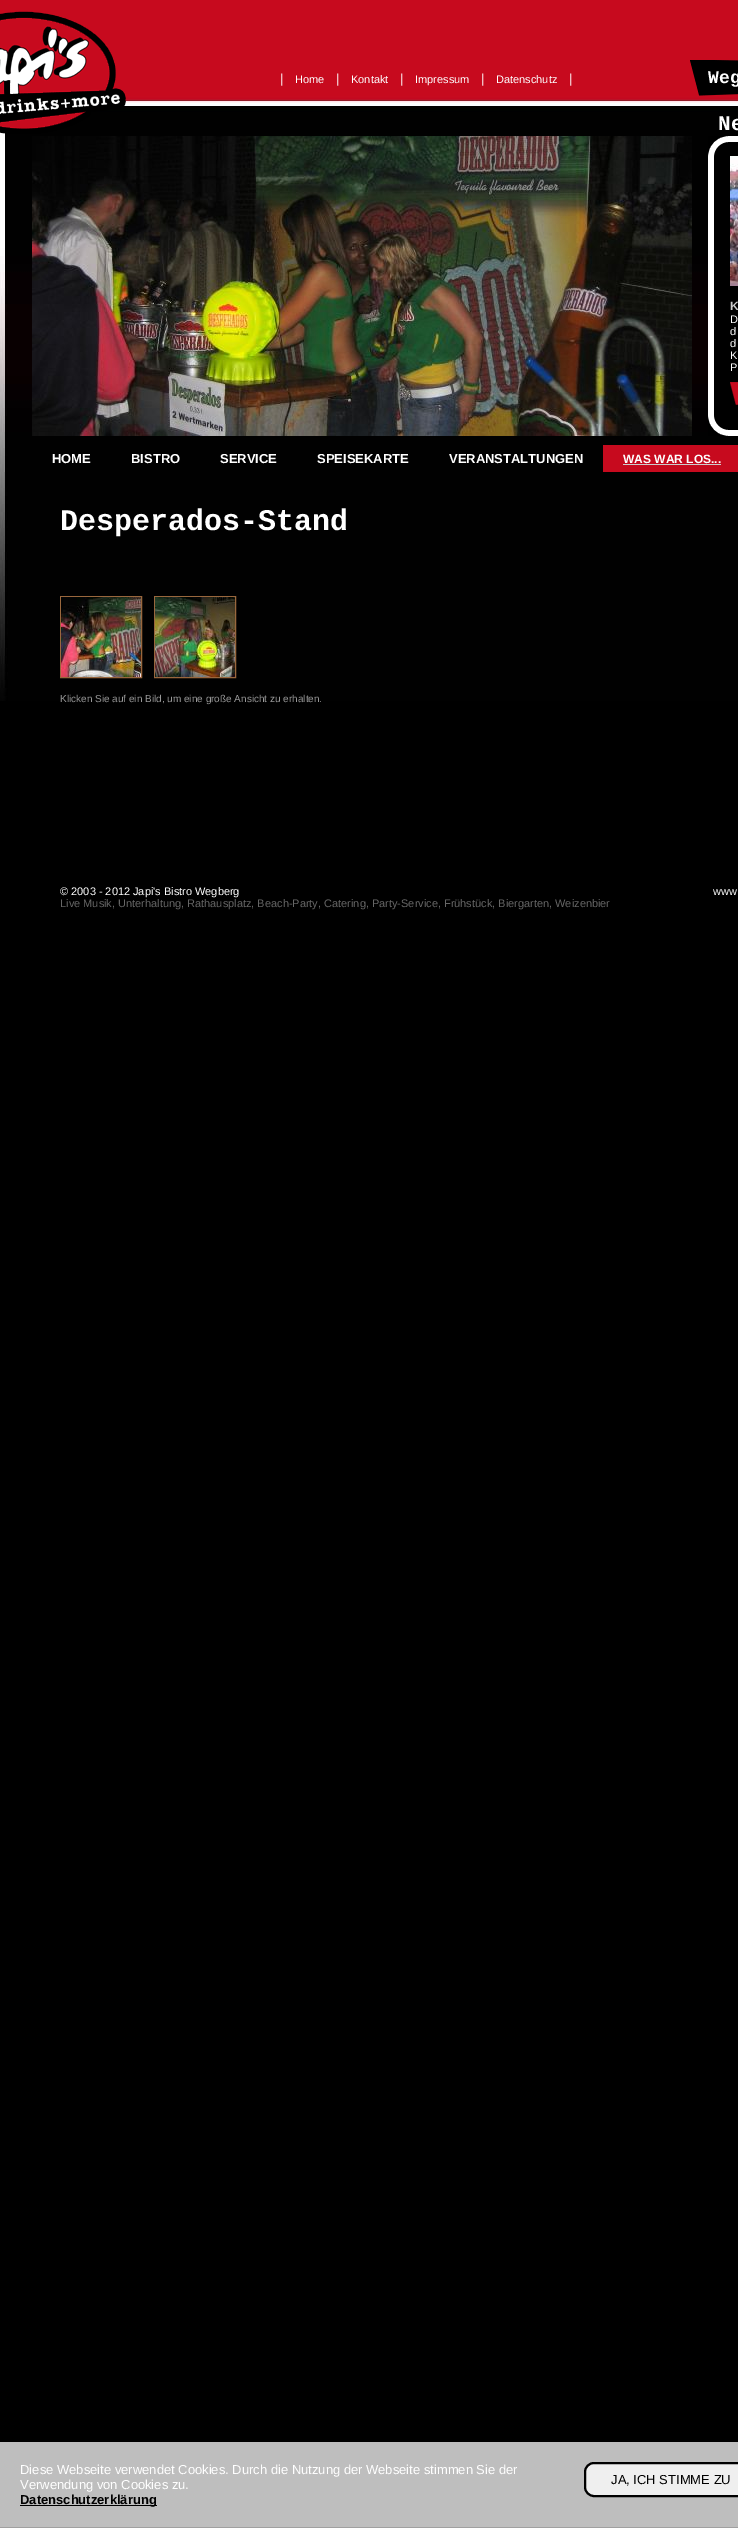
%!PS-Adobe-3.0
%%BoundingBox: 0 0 738 2528
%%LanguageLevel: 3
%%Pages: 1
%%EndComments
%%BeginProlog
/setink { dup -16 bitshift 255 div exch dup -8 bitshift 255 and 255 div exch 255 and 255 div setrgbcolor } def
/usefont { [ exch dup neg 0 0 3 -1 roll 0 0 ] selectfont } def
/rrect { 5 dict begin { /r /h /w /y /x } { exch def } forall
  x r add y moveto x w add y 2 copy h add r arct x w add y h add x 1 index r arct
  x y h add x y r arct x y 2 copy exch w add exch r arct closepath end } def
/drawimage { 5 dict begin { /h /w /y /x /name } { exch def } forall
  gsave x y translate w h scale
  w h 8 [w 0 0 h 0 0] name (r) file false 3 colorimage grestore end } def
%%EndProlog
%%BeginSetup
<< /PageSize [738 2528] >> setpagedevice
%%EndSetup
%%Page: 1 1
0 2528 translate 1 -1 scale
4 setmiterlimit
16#000000 setink
0 0 738 2528 rectfill
(img1.raw) 0 0 738 96 drawimage
(img3.raw) 0 96 738 605 drawimage
(img2.raw) 0 11 126 123 drawimage
/LiberationSans-Regular 13 usefont
16#FFFFFF setink
280 83 moveto (|) show
/LiberationSans-Regular 11 usefont
295 83 moveto (Home) show
/LiberationSans-Regular 13 usefont
336 83 moveto (|) show
/LiberationSans-Regular 11 usefont
351 83 moveto (Kontakt) show
/LiberationSans-Regular 13 usefont
400 83 moveto (|) show
/LiberationSans-Regular 11 usefont
415 83 moveto (Impressum) show
/LiberationSans-Regular 13 usefont
481 83 moveto (|) show
/LiberationSans-Regular 11 usefont
496 83 moveto (Datenschutz) show
/LiberationSans-Regular 13 usefont
569 83 moveto (|) show
(img4.raw) 690 60 48 36 drawimage
/LiberationMono-Bold 18 usefont
708 83 moveto (Weg) show
/LiberationMono-Bold 21 usefont
718 130 moveto (Ne) show
(img5.raw) 32 136 660 300 drawimage
(img6.raw) 708 136 30 300 drawimage
(img7.raw) 730 156 8 130 drawimage
/LiberationSans-Bold 12 usefont
16#CCCCCC setink
730 310 moveto (K) show
/LiberationSans-Regular 11 usefont
16#FFFFFF setink
[
    [(D) 730 323]
    [(d) 730 335]
    [(d) 730 347]
    [(K) 730 359]
    [(P) 730 371]
] { aload pop moveto show } forall
(img8.raw) 730 382 8 23 drawimage
/LiberationSans-Bold 13 usefont
[
    [(HOME) 52 463]
    [(BISTRO) 131 463]
    [(SERVICE) 220 463]
    [(SPEISEKARTE) 317 463]
    [(VERANSTALTUNGEN) 449 463]
] { aload pop moveto show } forall
16#C70A1E setink
603 445 135 27 rectfill
/LiberationSans-Bold 12 usefont
16#FFFFFF setink
623 463 moveto (WAS WAR LOS...) show
16#CCCCCC setink
623 464 98 1 rectfill
/LiberationMono-Bold 30 usefont
16#FFFFFF setink
60 530 moveto (Desperados-Stand) show
16#99673D setink
60.5 596.5 81 81 rectstroke
(img9.raw) 61 597 80 80 drawimage
154.5 596.5 81 81 rectstroke
(img10.raw) 155 597 80 80 drawimage
/LiberationSans-Regular 10 usefont
16#999999 setink
60 702 moveto (Klicken Sie auf ein Bild, um eine große Ansicht zu erhalten.) show
/LiberationSans-Regular 11 usefont
16#FFFFFF setink
60 895 moveto (© 2003 - 2012 Japi's Bistro Wegberg) show
16#666666 setink
60 907 moveto (Live Musik, Unterhaltung, Rathausplatz, Beach-Party, Catering, Party-Service, Frühstück, Biergarten, Weizenbier) show
16#FFFFFF setink
713 895 moveto (www.) show
16#BEBEBE setink
0 2442 738 85 rectfill
16#A0A0A0 setink
0 2527 738 1 rectfill
/LiberationSans-Regular 13 usefont
16#FFFFFF setink
20 2474 moveto (Diese Webseite verwendet Cookies. Durch die Nutzung der Webseite stimmen Sie der) show
20 2489 moveto (Verwendung von Cookies zu.) show
16#EFEFEF setink
585 2463 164 33 9 rrect gsave fill grestore
16#000000 setink
2 setlinewidth
stroke
611 2484 moveto (JA, ICH STIMME ZU) show
20 2505 137 1 rectfill
/LiberationSans-Bold 13 usefont
20 2504 moveto (Datenschutzerklärung) show
showpage
%%EOF
